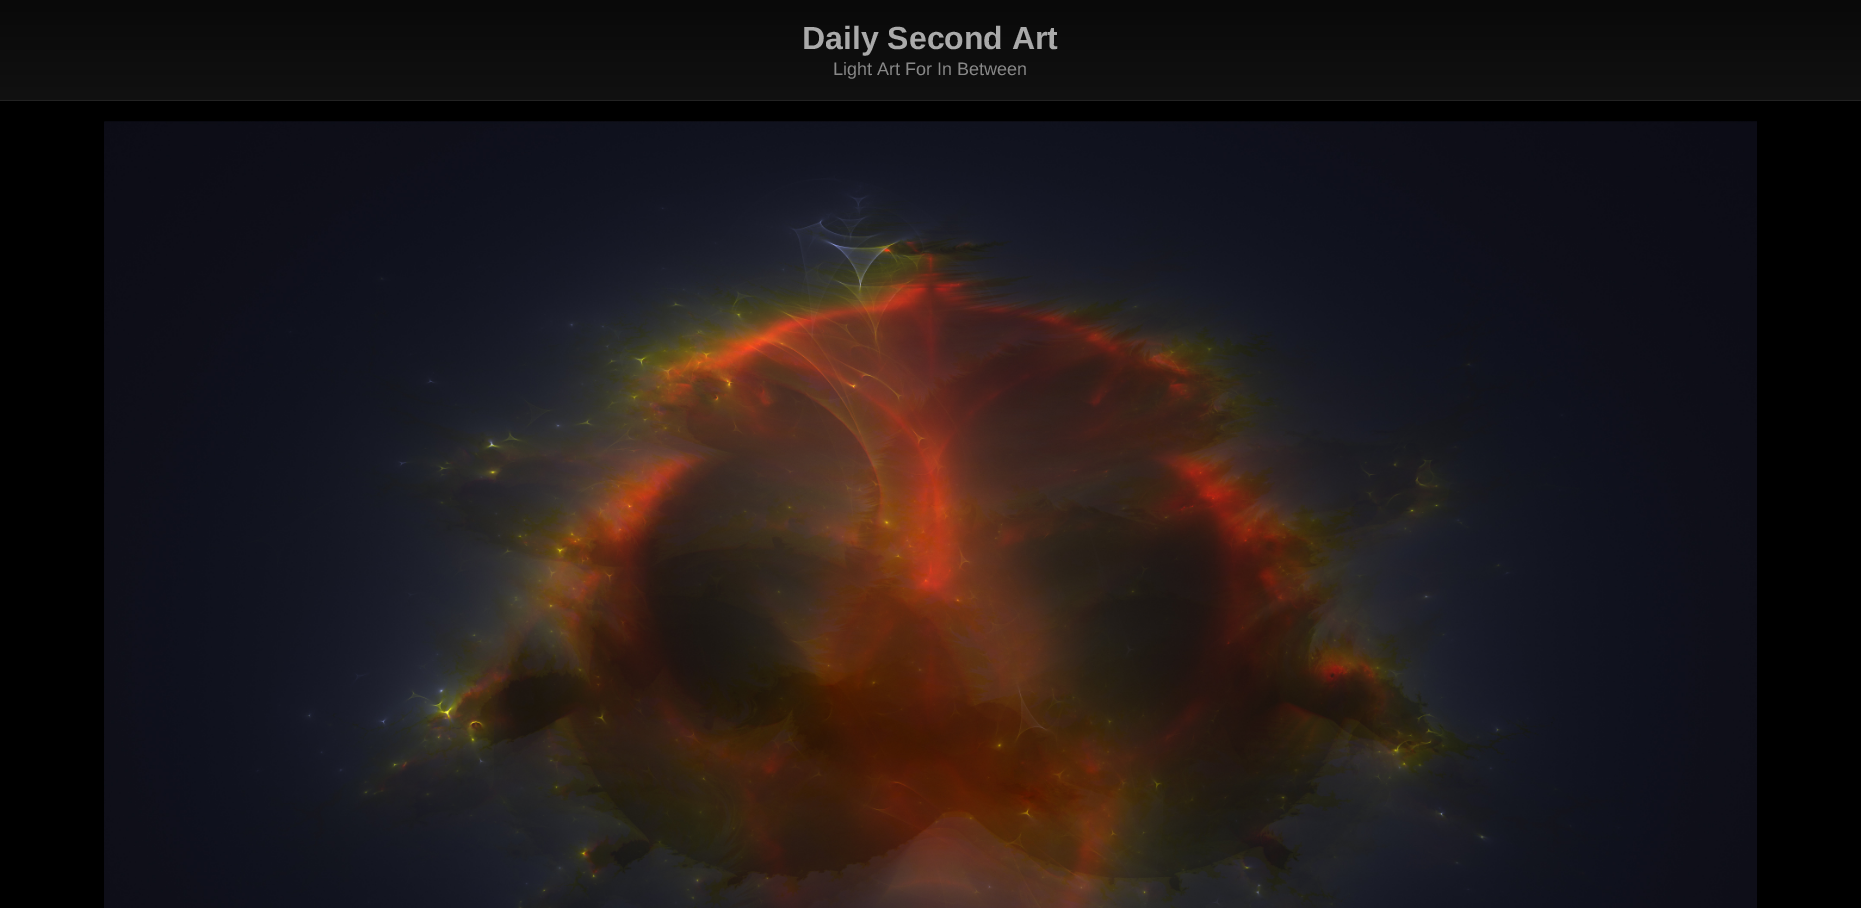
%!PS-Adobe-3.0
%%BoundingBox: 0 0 1861 908
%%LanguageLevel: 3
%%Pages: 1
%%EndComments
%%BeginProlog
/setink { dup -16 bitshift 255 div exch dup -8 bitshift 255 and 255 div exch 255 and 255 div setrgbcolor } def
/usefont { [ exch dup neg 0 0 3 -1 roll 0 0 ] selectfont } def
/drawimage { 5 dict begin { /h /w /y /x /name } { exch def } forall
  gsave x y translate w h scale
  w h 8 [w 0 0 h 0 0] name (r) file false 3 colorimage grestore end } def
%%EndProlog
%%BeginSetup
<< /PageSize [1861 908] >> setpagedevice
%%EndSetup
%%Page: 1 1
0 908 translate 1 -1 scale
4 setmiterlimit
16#FFFFFF setink
0 0 1861 908 rectfill
gsave 0 0 moveto 1861 0 lineto 1861 100 lineto 0 100 lineto closepath clip newpath
<< /ShadingType 2 /ColorSpace /DeviceRGB /Coords [931 0 931 100] /Extend [true true] /Function << /FunctionType 2 /Domain [0 1] /C0 [0.035 0.035 0.035] /C1 [0.067 0.067 0.067] /N 1 >> >> shfill grestore
/LiberationSans-Bold 32 usefont
16#AAAAAA setink
802 49 moveto (Daily Second Art) show
/LiberationSans-Regular 18 usefont
16#888888 setink
833 75 moveto (Light Art For In Between) show
16#000000 setink
0 101 1861 807 rectfill
16#222222 setink
0 100 1861 1 rectfill
(img1.raw) 104 121 1653 787 drawimage
showpage
%%EOF
